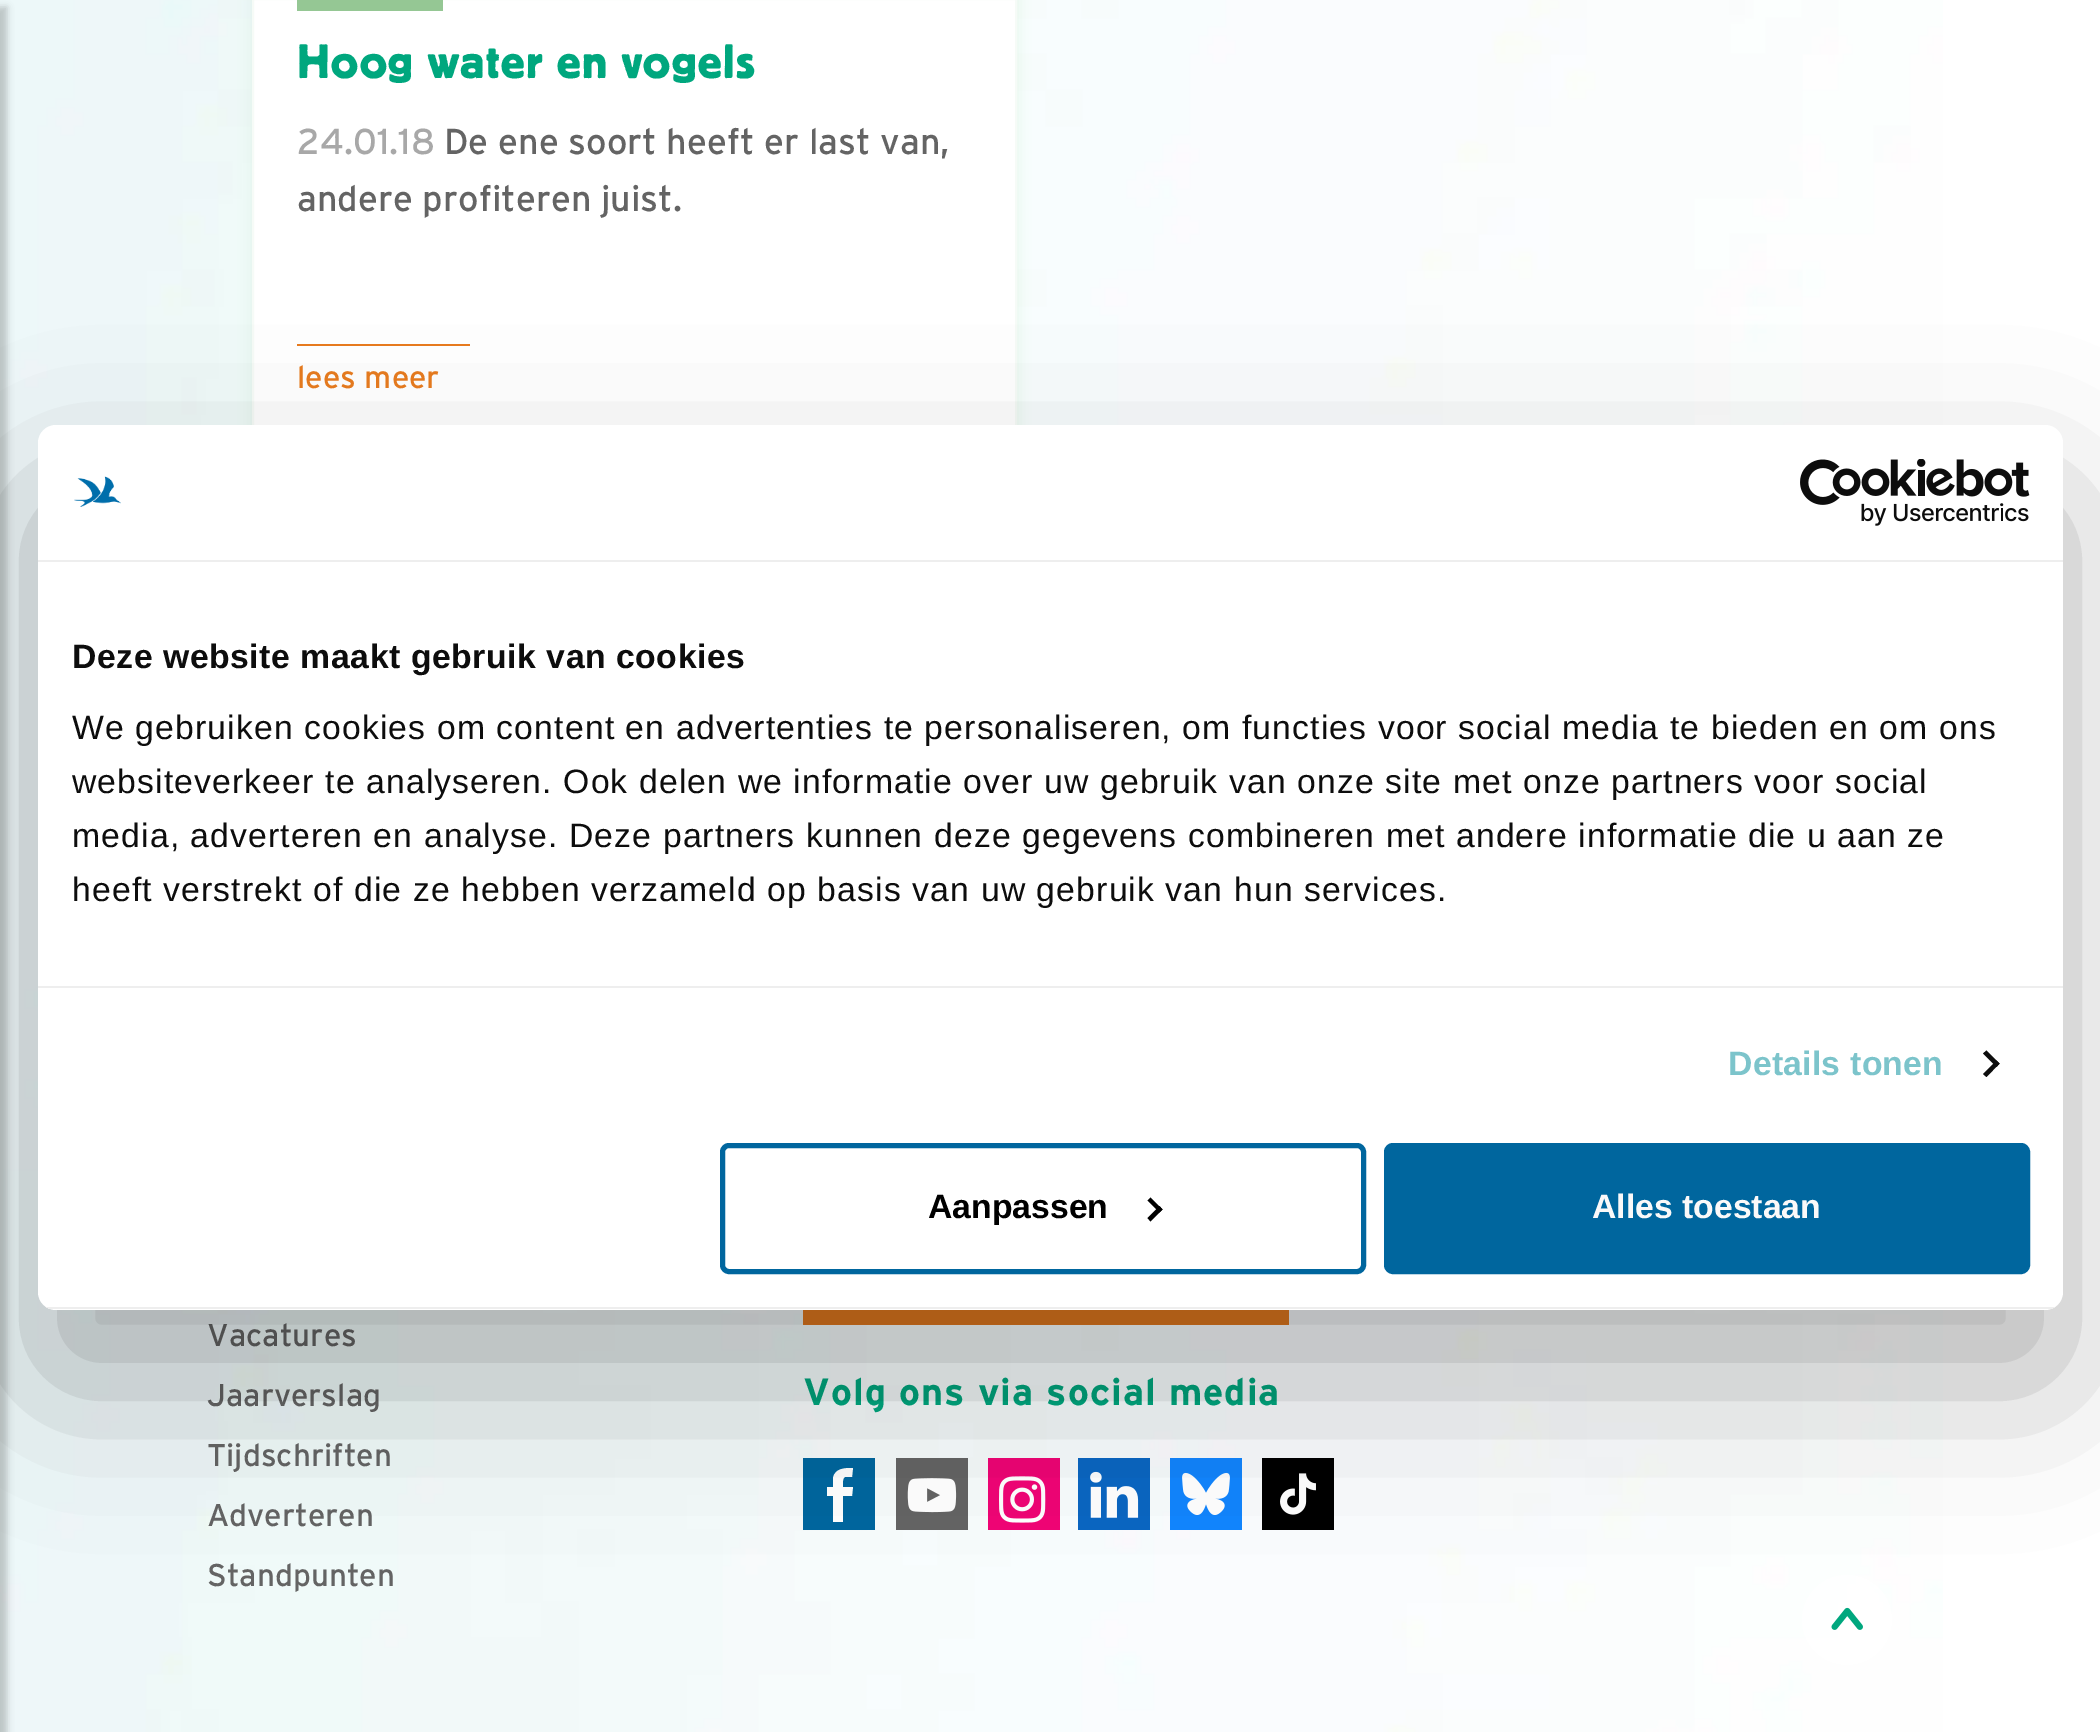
%!PS-Adobe-3.0
%%BoundingBox: 0 0 2100 1732
%%LanguageLevel: 3
%%Pages: 1
%%EndComments
%%BeginProlog
/setink { dup -16 bitshift 255 div exch dup -8 bitshift 255 and 255 div exch 255 and 255 div setrgbcolor } def
/usefont { [ exch dup neg 0 0 3 -1 roll 0 0 ] selectfont } def
/setalpha { dup .setfillconstantalpha .setstrokeconstantalpha } def
/disc { newpath 0 360 arc closepath } def
/rrect { 5 dict begin { /r /h /w /y /x } { exch def } forall
  x r add y moveto x w add y 2 copy h add r arct x w add y h add x 1 index r arct
  x y h add x y r arct x y 2 copy exch w add exch r arct closepath end } def
/softshadow { 12 dict begin { /a /b /q /h /w /y /x } { exch def } forall gsave /was 0 def
  9 -2 -9 { dup b mul 4 div /e exch def 1 sub .425 mul 2.718 exch exp 1 add a .99 .min exch div /now exch def
    1 1 now sub 1 was sub div sub setalpha /was now def
    w h .min e 2 mul add 0 gt { x e sub y e sub w e 2 mul add h e 2 mul add
      q e add b .6 mul add w h .min 2 div e add .min 0 .max rrect fill } if } for grestore end } def
/drawimage { 5 dict begin { /h /w /y /x /name } { exch def } forall
  gsave x y translate w h scale
  w h 8 [w 0 0 h 0 0] name (r) file false 3 colorimage grestore end } def
%%EndProlog
%%BeginSetup
<< /PageSize [2100 1732] /PageUsesTransparency true >> setpagedevice
%%EndSetup
%%Page: 1 1
0 .pushpdf14devicefilter
0 1732 translate 1 -1 scale
4 setmiterlimit
16#FFFFFF setink
0 0 2100 1732 rectfill
(img1.raw) 0 0 1943 1732 drawimage
16#000000 setink
-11 7 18 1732 0 3.5 0.2 softshadow
16#C0E2CA setink
252 -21 765 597 0 7 0.35 softshadow
16#FFFFFF setink
254 0 761 425 rectfill
16#F6FBF7 setink
2 setlinewidth
253 -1 763 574 rectstroke
16#95C794 setink
297 0 146 11 rectfill
/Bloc-Regular 50.5 usefont
16#00A77E setink
297 78 moveto 1.5 0 (Hoog water en vogels) ashow
/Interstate-Regular 36 usefont
16#A8A8A8 setink
297 154 moveto (24.01.18) show
16#646464 setink
444 154 moveto (De ene soort heeft er last van,) show
297 211 moveto (andere profiteren juist.) show
16#E87B1E setink
297 344 173 2 rectfill
/Interstate-Regular 31.5 usefont
297 388 moveto (lees meer) show
16#646464 setink
[
    [(Vacatures) 207 1346]
    [(Jaarverslag) 207 1406]
    [(Tijdschriften) 207 1466]
    [(Adverteren) 207 1526]
    [(Standpunten) 207 1586]
] { aload pop moveto show } forall
16#E87B1E setink
803 1310 486 15 rectfill
/Interstate-Bold 37.75 usefont
16#00A77E setink
803 1405 moveto 1.1 0 (Volg ons via social media) ashow
16#00669E setink
803 1458 72 72 rectfill
16#FFFFFF setink
833 1522 moveto 833 1496 lineto 827 1496 lineto 827 1487 lineto 833 1487 lineto 833 1478 lineto 835 1468 845 1468 853 1468 curveto 852 1477 lineto 845 1477 lineto 842 1478 843 1485 843 1487 curveto 853 1487 lineto 852 1496 lineto 843 1496 lineto 843 1522 lineto closepath fill
16#646464 setink
896 1458 72 72 rectfill
(img2.raw) 907 1478 50 35 drawimage
16#F00475 setink
988 1458 72 72 rectfill
(img3.raw) 999 1476 47 47 drawimage
16#0A66C2 setink
1078 1458 72 72 rectfill
(img4.raw) 1090 1471 49 47 drawimage
16#1185FE setink
1170 1458 72 72 rectfill
(img5.raw) 1182 1472 48 43 drawimage
16#000000 setink
1262 1458 72 72 rectfill
(img6.raw) 1280 1473 36 42 drawimage
0.8 setalpha
16#FFFFFF setink
1847 1620 45 disc fill
1 setalpha
(img7.raw) 1831 1607 32 23 drawimage
16#000000 setink
38 497 2025 885 18 76.5 0.3 softshadow
16#FFFFFF setink
38 425 2025 885 18 rrect fill
16#EEEEEE setink
38 560 2025 2 rectfill
(img8.raw) 74 476 47 31 drawimage
(img9.raw) 1800 459 230 67 drawimage
38 986 2025 2 rectfill
/LiberationSans-Bold 33.75 usefont
16#0D0D0D setink
72 668 moveto 0.55 0 (Deze website maakt gebruik van cookies) ashow
/LiberationSans-Regular 33.75 usefont
72 739 moveto 1.12 0 (We gebruiken cookies om content en advertenties te personaliseren, om functies voor social media te bieden en om ons) ashow
72 793 moveto 1.12 0 (websiteverkeer te analyseren. Ook delen we informatie over uw gebruik van onze site met onze partners voor social) ashow
72 847 moveto 1.12 0 (media, adverteren en analyse. Deze partners kunnen deze gegevens combineren met andere informatie die u aan ze) ashow
72 901 moveto 1.12 0 (heeft verstrekt of die ze hebben verzameld op basis van uw gebruik van hun services.) ashow
/LiberationSans-Bold 33.75 usefont
16#7CC4CB setink
1728 1075 moveto 0.25 0 (Details tonen) ashow
16#0D0D0D setink
1986.5 1050.5 moveto 1999.5 1063.5 lineto 1996.5 1067 lineto 1983 1053.5 lineto closepath fill
1996.5 1060.5 moveto 1999.5 1063.5 lineto 1986.5 1077 lineto 1983 1074 lineto closepath fill
gsave
38 425 2025 885 18 rrect clip newpath
16#EEEEEE setink
38 1307 2025 2 rectfill
grestore
16#00669E setink
5 setlinewidth
722.5 1145.5 641 126 6.5 rrect stroke
16#000000 setink
928 1218 moveto (Aanpassen) show
1150.5 1197.5 moveto 1162.5 1209.5 lineto 1159.5 1212.5 lineto 1147.5 1200.5 lineto closepath fill
1159.5 1206 moveto 1162.5 1209.5 lineto 1150.5 1221.5 lineto 1147.5 1218 lineto closepath fill
16#00669E setink
1386.5 1145.5 641 126 6.5 rrect gsave fill grestore
stroke
16#FBF9F9 setink
1592 1218 moveto (Alles toestaan) show
.poppdf14devicefilter showpage
%%EOF
